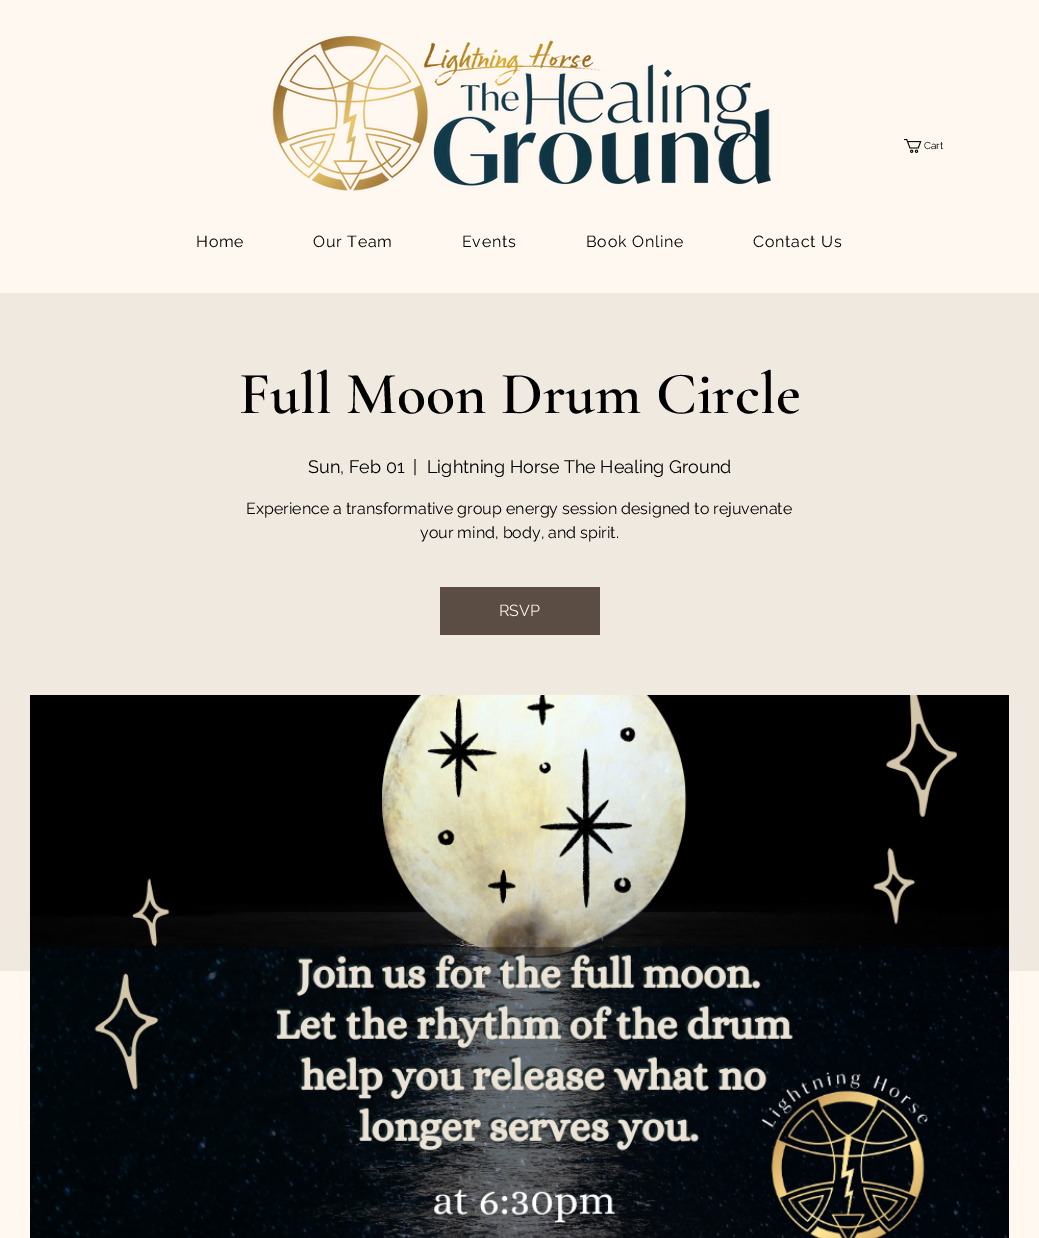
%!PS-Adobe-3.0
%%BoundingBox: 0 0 1039 1238
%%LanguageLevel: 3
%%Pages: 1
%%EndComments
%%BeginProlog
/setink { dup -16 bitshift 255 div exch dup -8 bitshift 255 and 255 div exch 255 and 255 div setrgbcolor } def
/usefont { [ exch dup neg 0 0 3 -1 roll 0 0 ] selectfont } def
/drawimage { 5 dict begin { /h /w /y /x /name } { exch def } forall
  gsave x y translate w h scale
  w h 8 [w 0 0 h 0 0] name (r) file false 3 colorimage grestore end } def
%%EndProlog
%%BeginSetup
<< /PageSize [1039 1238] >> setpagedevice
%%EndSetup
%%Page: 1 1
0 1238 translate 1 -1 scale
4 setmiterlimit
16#FFF8F1 setink
0 0 1039 1238 rectfill
(img1.raw) 271 34 501 159 drawimage
(img2.raw) 904 139 18 14 drawimage
/Raleway-Regular 10 usefont
16#000000 setink
924 149 moveto (Cart) show
/Raleway-Regular 16 usefont
196 247 moveto 0.75 0 (Home) ashow
313 247 moveto 0.75 0 (Our Team) ashow
462 247 moveto 0.75 0 (Events) ashow
586 247 moveto 0.75 0 (Book Online) ashow
753 247 moveto 0.75 0 (Contact Us) ashow
16#EFE9DF setink
0 293 1039 678 rectfill
/CormorantGaramond-SemiBold 60 usefont
16#000000 setink
239 413 moveto (Full Moon Drum Circle) show
/Raleway-Regular 18 usefont
[
    [(Sun, Feb 01) 308 473]
    [(|) 413 473]
    [(Lightning Horse The Healing Ground) 427 473]
] { aload pop moveto show } forall
/Raleway-Regular 16 usefont
246 514 moveto (Experience a transformative group energy session designed to rejuvenate) show
420 538 moveto (your mind, body, and spirit.) show
16#5B4D43 setink
440 587 160 48 rectfill
16#FFF8F1 setink
499 616 moveto (RSVP) show
(img3.raw) 30 695 979 543 drawimage
showpage
%%EOF
